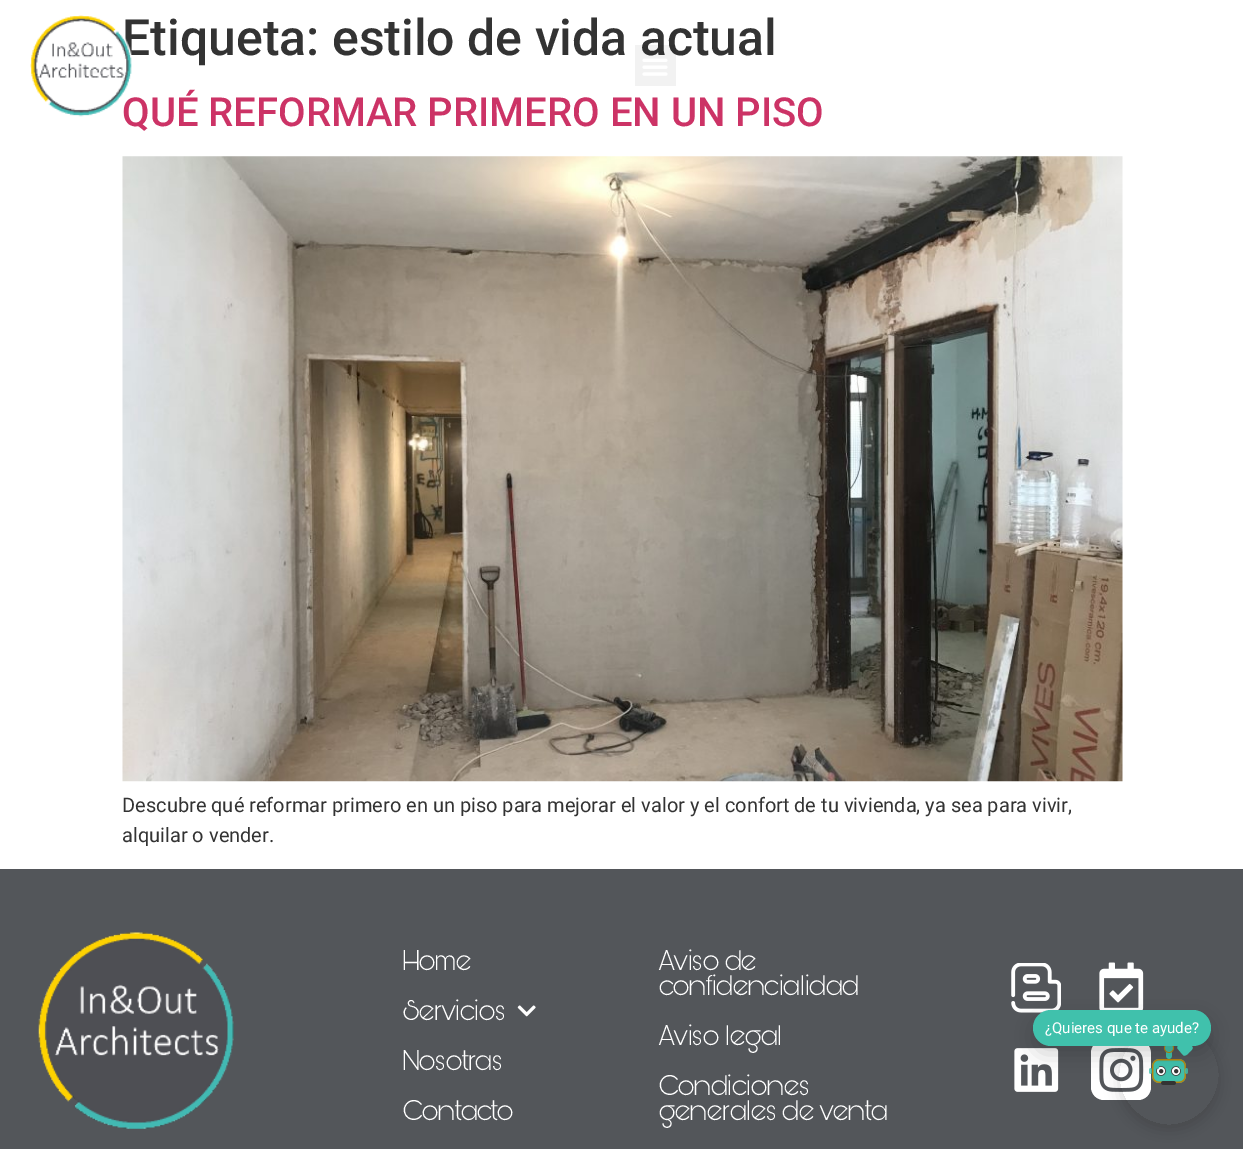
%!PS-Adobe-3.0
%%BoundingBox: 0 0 1243 1149
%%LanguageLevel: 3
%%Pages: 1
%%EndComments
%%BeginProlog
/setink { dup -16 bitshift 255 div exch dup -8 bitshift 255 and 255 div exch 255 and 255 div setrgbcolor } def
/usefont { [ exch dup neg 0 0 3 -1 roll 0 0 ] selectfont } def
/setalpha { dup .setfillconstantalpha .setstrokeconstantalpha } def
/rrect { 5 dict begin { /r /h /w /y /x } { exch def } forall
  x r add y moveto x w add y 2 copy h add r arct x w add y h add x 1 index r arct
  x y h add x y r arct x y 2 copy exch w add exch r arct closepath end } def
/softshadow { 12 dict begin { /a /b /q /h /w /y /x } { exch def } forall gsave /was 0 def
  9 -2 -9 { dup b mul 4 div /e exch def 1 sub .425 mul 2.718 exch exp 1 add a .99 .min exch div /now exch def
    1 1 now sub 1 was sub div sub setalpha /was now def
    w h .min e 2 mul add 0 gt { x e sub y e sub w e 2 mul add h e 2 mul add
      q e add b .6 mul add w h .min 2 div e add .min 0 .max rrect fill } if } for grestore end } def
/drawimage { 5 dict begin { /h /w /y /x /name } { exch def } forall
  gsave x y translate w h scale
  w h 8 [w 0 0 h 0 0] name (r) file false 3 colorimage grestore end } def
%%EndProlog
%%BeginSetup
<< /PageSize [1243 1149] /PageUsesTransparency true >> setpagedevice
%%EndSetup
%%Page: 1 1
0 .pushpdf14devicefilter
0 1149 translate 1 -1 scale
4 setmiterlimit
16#FFFFFF setink
0 0 1243 1149 rectfill
/Roboto-Medium 50 usefont
16#333333 setink
122 55 moveto (Etiqueta: estilo de vida actual) show
/Roboto-Medium 40 usefont
16#CC3366 setink
122 126 moveto (QUÉ REFORMAR PRIMERO EN UN PISO) show
(img1.raw) 30 15 102 102 drawimage
0.05 setalpha
16#000000 setink
635 45 41 41 rectfill
1 setalpha
(img2.raw) 642 58 26 18 drawimage
(img3.raw) 122 156 1001 626 drawimage
/Roboto-Regular 20 usefont
16#333333 setink
122 812 moveto (Descubre qué reformar primero en un piso para mejorar el valor y el confort de tu vivienda, ya sea para vivir,) show
122 842 moveto (alquilar o vender.) show
16#53565A setink
0 869 1243 280 rectfill
(img4.raw) 38 932 196 197 drawimage
/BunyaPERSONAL-Light 30 usefont
16#FFFFFF setink
403 970 moveto (Home) show
403 1020 moveto (Servicios) show
(img5.raw) 517 1005 19 12 drawimage
[
    [(Nosotras) 403 1070]
    [(Contacto) 403 1120]
    [(Aviso de) 659 970]
    [(confidencialidad) 659 995]
    [(Aviso legal) 659 1045]
    [(Condiciones) 659 1095]
    [(generales de venta) 659 1120]
] { aload pop moveto show } forall
(img6.raw) 1011 963 50 50 drawimage
(img7.raw) 1099 962 45 48 drawimage
(img8.raw) 1014 1048 45 44 drawimage
1091 1040 60 60 13 rrect fill
(img9.raw) 1099 1048 45 44 drawimage
gsave
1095 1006 moveto 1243 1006 lineto 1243 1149 lineto 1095 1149 lineto closepath 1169 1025 moveto 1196.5 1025 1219 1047.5 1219 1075 curveto 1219 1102.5 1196.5 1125 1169 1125 curveto 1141.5 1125 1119 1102.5 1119 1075 curveto 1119 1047.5 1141.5 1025 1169 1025 curveto closepath eoclip newpath
16#000000 setink
1119 1030 100 100 50 7.5 0.15 softshadow
grestore
(img10.raw) 1149 1046 39 39 drawimage
16#000000 setink
1033 1018 178 36 18 11 0.18 softshadow
16#40C1AC setink
1033 1010 178 36 18 rrect fill
/Roboto-Regular 15 usefont
16#FFFFFF setink
1045 1033 moveto (¿Quieres que te ayude?) show
16#40C1AC setink
1187 1040.5 moveto 1192.5 1047 lineto 1193.5 1049 1190.5 1051 1189.5 1052 curveto 1188 1053.5 1185.5 1057 1183 1055 curveto 1177.5 1048.5 lineto 1176.5 1046.5 1179.5 1044.5 1180.5 1043.5 curveto 1182 1042 1184.5 1038.5 1187 1040.5 curveto closepath fill
.poppdf14devicefilter showpage
%%EOF
